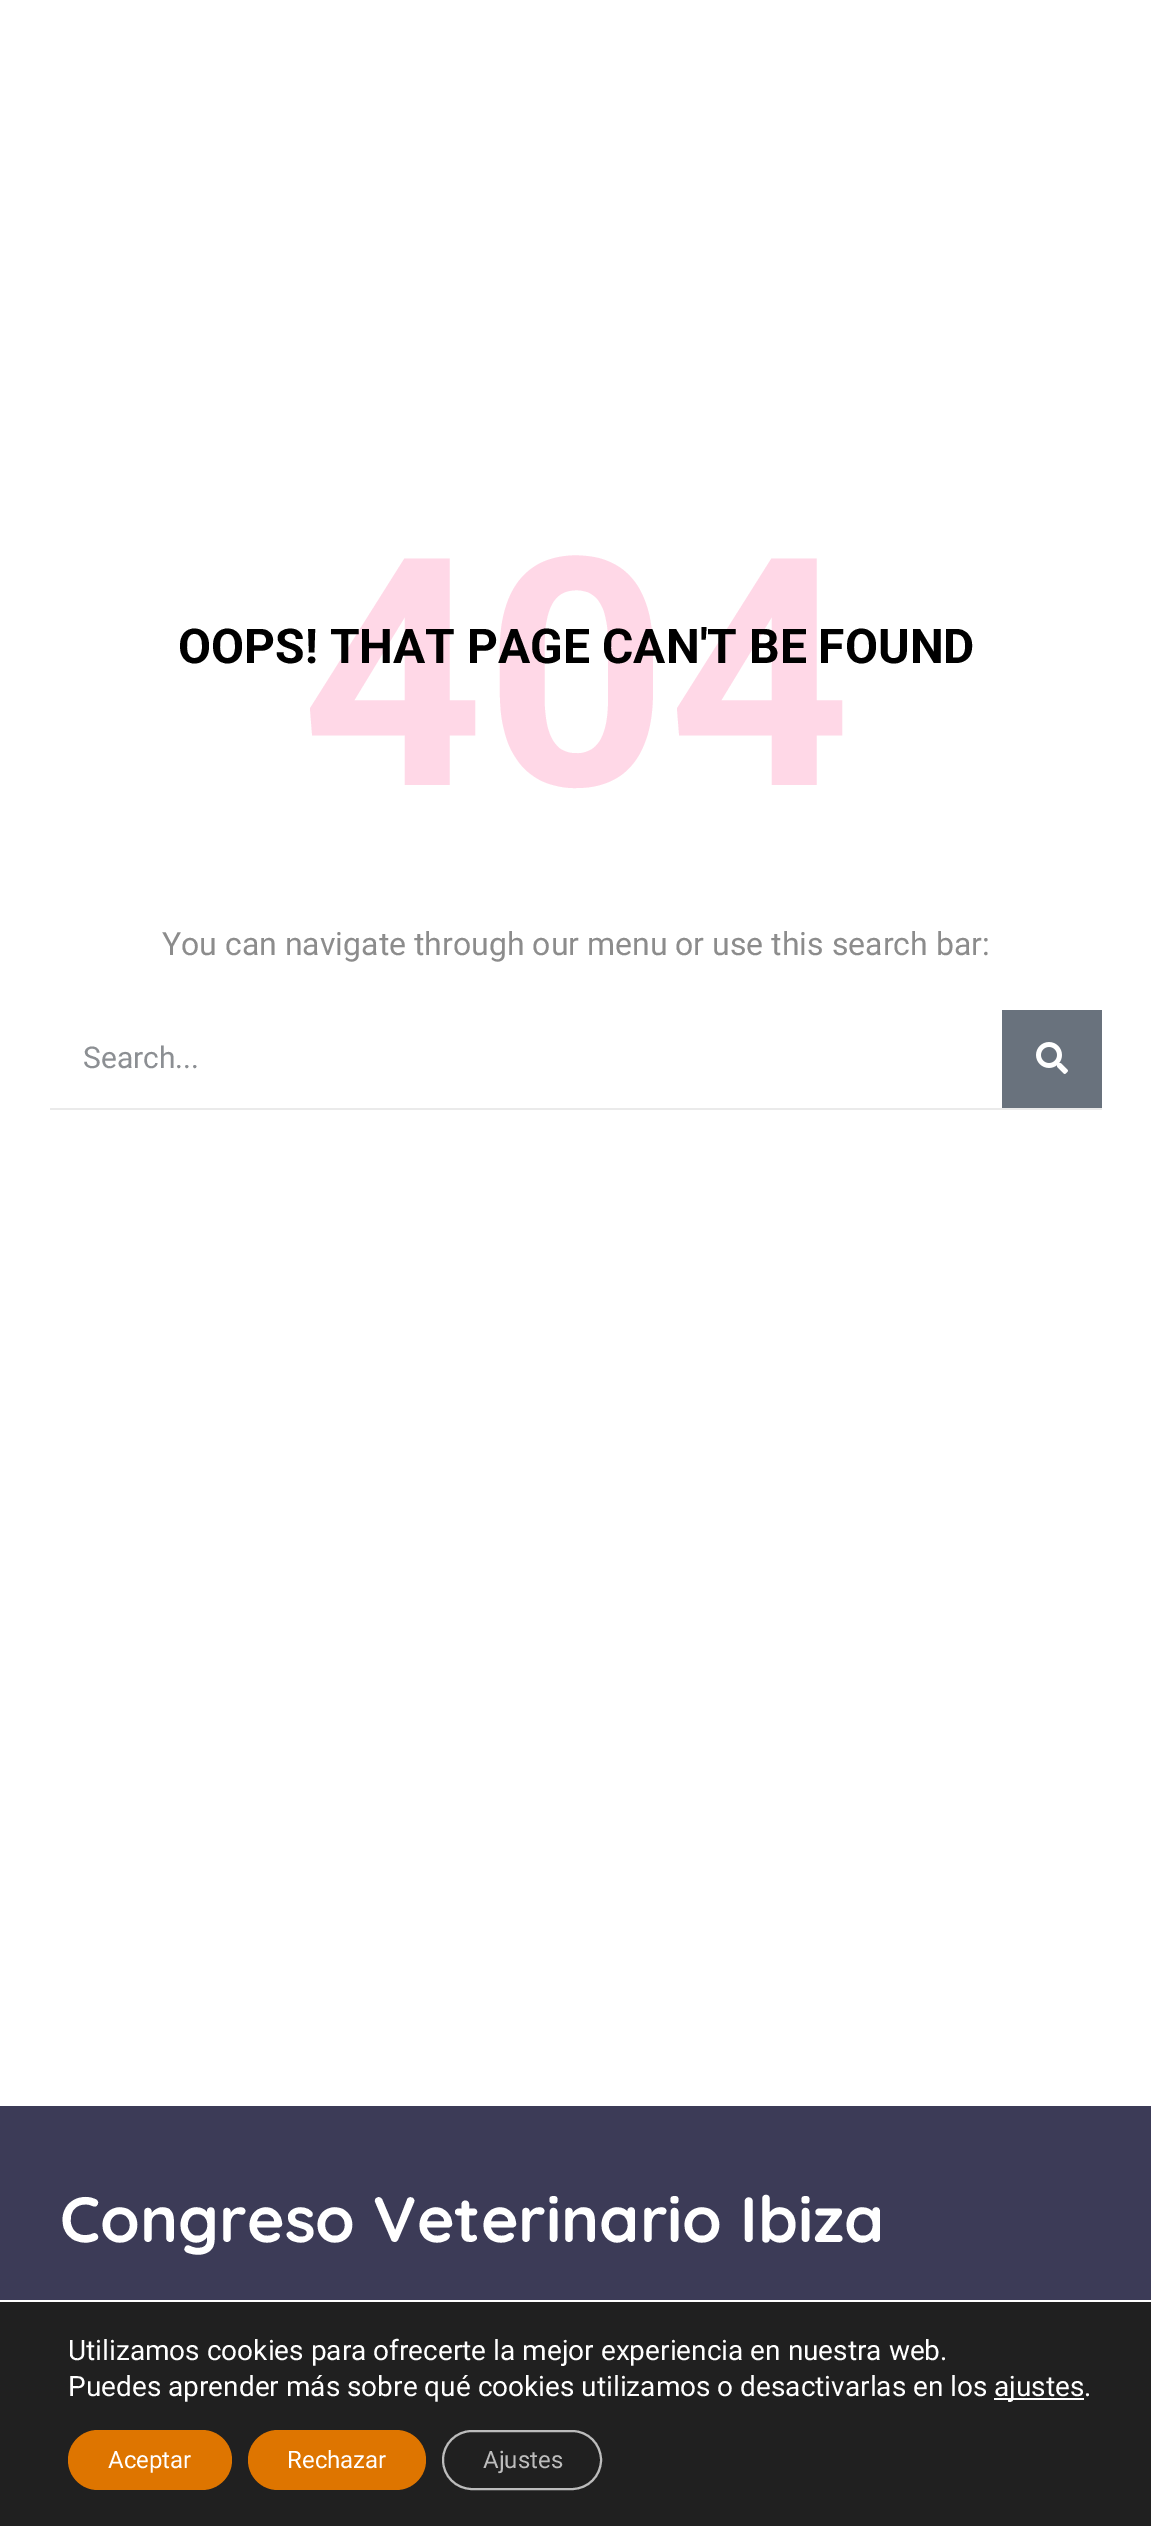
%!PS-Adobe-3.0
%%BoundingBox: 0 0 1151 2526
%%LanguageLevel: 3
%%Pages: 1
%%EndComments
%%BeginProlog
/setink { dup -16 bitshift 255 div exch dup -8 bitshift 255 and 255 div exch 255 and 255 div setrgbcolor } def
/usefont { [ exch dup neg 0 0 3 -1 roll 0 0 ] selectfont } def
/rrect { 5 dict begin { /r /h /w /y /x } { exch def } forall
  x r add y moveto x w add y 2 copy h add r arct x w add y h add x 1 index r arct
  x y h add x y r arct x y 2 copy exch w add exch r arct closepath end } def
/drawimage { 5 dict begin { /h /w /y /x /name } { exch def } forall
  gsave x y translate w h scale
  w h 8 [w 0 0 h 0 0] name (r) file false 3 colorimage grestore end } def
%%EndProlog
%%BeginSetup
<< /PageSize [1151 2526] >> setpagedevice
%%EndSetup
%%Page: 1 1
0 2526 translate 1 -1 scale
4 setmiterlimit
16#FFFFFF setink
0 0 1151 2526 rectfill
/Roboto-Bold 320 usefont
16#FFD8E7 setink
301 785 moveto (404) show
/Roboto-Bold 48 usefont
16#000000 setink
178 663 moveto (OOPS! THAT PAGE CAN'T BE FOUND) show
/Roboto-Regular 32 usefont
16#8C8C8C setink
162 955 moveto (You can navigate through our menu or use this search bar:) show
16#EAEAEA setink
50 1108 1052 2 rectfill
/Roboto-Regular 30 usefont
16#8C8F93 setink
83 1068 moveto (Search...) show
16#69727D setink
1002 1010 100 98 rectfill
(img1.raw) 1036 1042 32 32 drawimage
16#3C3B57 setink
0 2106 1151 194 rectfill
/Quicksand-Bold 64 usefont
16#FFFFFF setink
60 2242 moveto (Congreso Veterinario Ibiza) show
16#202020 setink
0 2302 1151 224 rectfill
/Roboto-Regular 28 usefont
16#FFFFFF setink
68 2360 moveto (Utilizamos cookies para ofrecerte la mejor experiencia en nuestra web.) show
68 2396 moveto (Puedes aprender más sobre qué cookies utilizamos o desactivarlas en los) show
994 2398 90 2 rectfill
994 2396 moveto (ajustes.) show
16#DE7500 setink
68 2430 164 60 30 rrect fill
/Roboto-Regular 24 usefont
16#FFFFFF setink
108 2468 moveto (Aceptar) show
16#DE7500 setink
248 2430 178 60 30 rrect fill
16#FFFFFF setink
287 2468 moveto (Rechazar) show
16#BCBCBC setink
2 setlinewidth
443 2431 158 58 29 rrect stroke
483 2468 moveto (Ajustes) show
showpage
%%EOF
